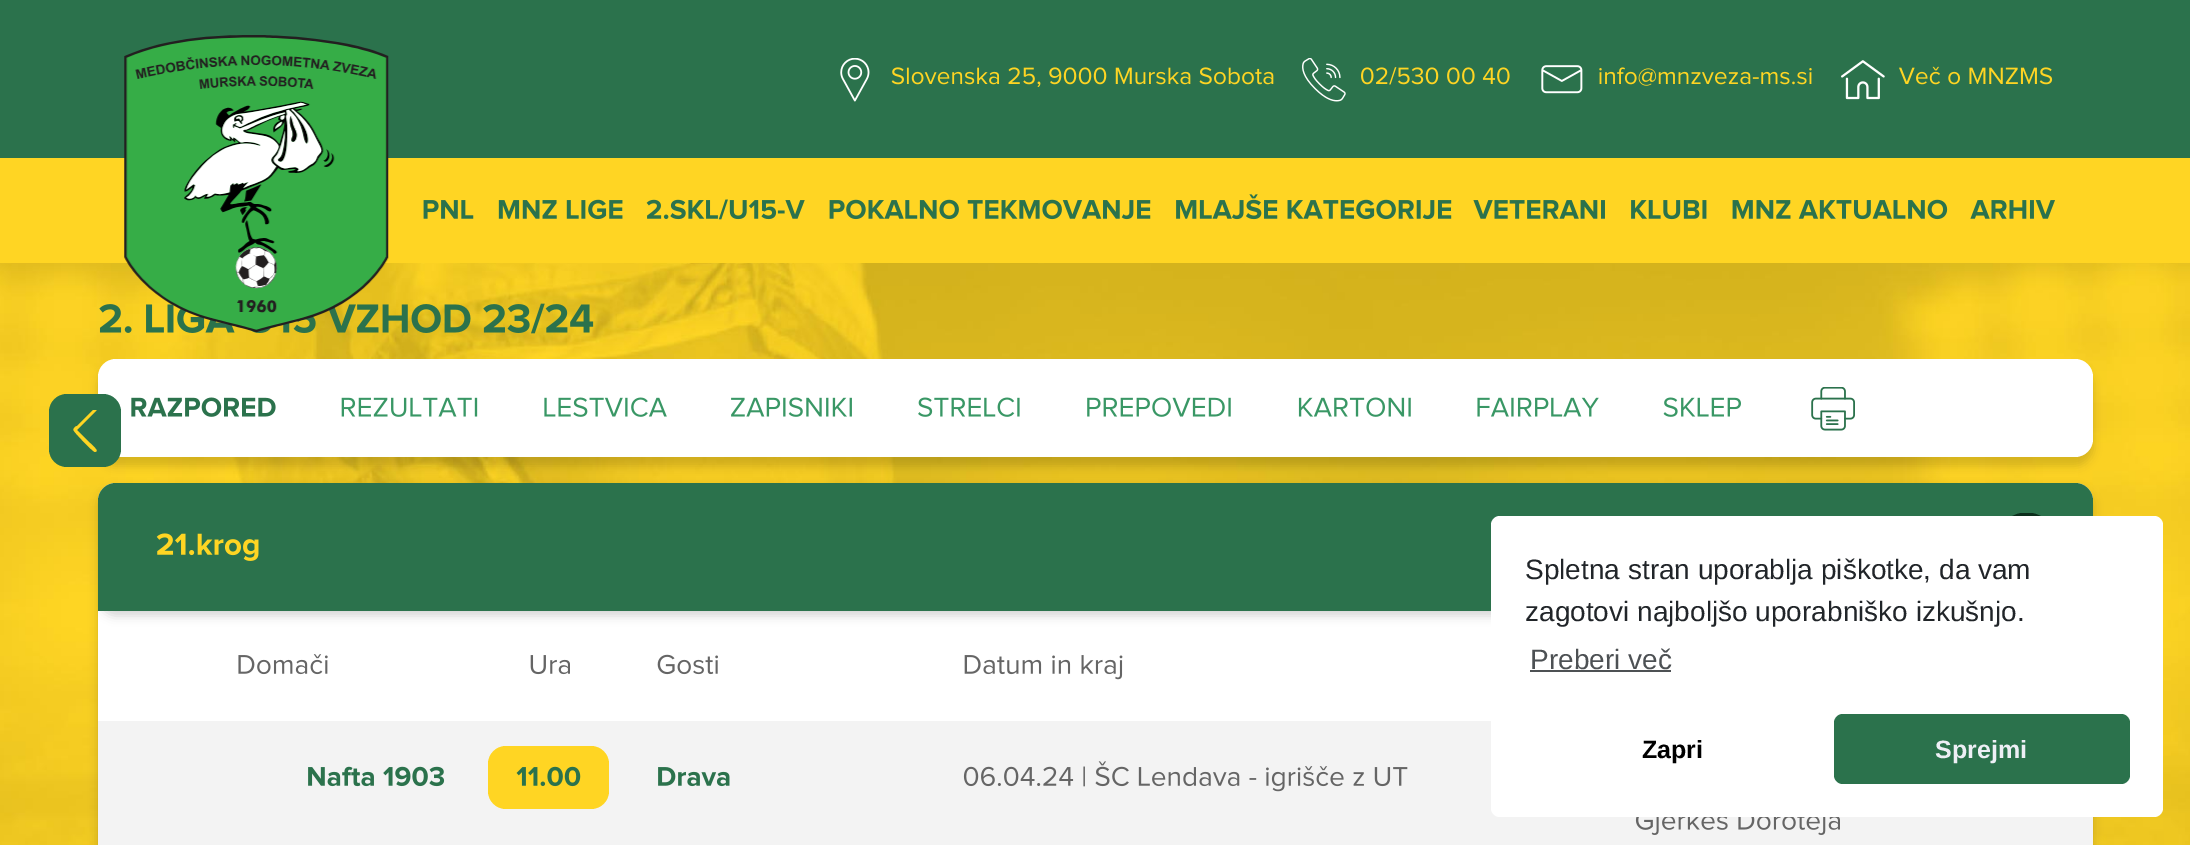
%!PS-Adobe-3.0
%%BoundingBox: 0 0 2190 845
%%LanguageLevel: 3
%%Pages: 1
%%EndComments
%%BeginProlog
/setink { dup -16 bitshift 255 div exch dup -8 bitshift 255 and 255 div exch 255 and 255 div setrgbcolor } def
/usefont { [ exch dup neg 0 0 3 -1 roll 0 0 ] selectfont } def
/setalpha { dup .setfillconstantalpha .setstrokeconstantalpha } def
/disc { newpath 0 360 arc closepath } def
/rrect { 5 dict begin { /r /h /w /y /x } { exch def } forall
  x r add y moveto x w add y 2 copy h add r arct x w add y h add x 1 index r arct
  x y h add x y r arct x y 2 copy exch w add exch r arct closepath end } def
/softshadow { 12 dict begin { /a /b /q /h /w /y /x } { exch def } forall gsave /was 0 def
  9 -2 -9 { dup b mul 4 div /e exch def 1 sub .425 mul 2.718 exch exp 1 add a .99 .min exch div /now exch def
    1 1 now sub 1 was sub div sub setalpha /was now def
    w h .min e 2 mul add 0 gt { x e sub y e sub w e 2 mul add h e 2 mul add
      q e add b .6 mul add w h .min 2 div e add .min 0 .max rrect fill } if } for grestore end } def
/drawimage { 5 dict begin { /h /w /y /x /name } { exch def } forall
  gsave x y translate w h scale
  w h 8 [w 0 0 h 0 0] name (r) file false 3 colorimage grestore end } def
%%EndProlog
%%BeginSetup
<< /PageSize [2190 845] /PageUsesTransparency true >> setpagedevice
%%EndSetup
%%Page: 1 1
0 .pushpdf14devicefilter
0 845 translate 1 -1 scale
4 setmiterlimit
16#FFFFFF setink
0 0 2190 845 rectfill
16#2B724C setink
0 0 2190 158 rectfill
(img1.raw) 840 58 30 44 drawimage
(img2.raw) 891 67 383 20 drawimage
(img3.raw) 1302 58 44 44 drawimage
(img4.raw) 1361 67 149 18 drawimage
(img5.raw) 1541 65 42 29 drawimage
(img6.raw) 1599 67 213 19 drawimage
(img7.raw) 1841 60 44 40 drawimage
(img8.raw) 1899 66 154 19 drawimage
16#FFD523 setink
0 158 2190 105 rectfill
(img19.raw) 0 263 2190 582 drawimage
(img20.raw) 99 303 495 31 drawimage
(img9.raw) 124 35 265 298 drawimage
(img10.raw) 423 200 51 19 drawimage
(img11.raw) 498 199 125 21 drawimage
(img12.raw) 646 199 159 21 drawimage
(img13.raw) 829 199 322 21 drawimage
(img14.raw) 1176 194 276 26 drawimage
(img15.raw) 1473 200 132 19 drawimage
(img16.raw) 1631 200 76 20 drawimage
(img17.raw) 1732 199 216 21 drawimage
(img18.raw) 1970 200 85 19 drawimage
16#000000 setink
98 368 1995 98 18 4.5 0.15 softshadow
16#FFFFFF setink
98 359 1995 98 18 rrect fill
(img21.raw) 131 397 145 20 drawimage
(img22.raw) 341 397 137 20 drawimage
(img23.raw) 544 397 123 20 drawimage
(img24.raw) 731 397 121 20 drawimage
(img25.raw) 918 397 102 20 drawimage
(img26.raw) 1087 397 144 20 drawimage
(img27.raw) 1298 397 113 20 drawimage
(img28.raw) 1477 397 122 20 drawimage
(img29.raw) 1663 397 78 20 drawimage
(img30.raw) 1811 387 44 44 drawimage
16#000000 setink
98 488 1995 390 18 5 0.16 softshadow
16#FFFFFF setink
98 483 1995 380 18 rrect fill
gsave
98 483 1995 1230 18 rrect clip newpath
16#000000 setink
98 488 1995 128 18 5 0.16 softshadow
grestore
16#2B724C setink
116 483 moveto 2075 483 lineto 2085 483 2093 491 2093 501 curveto 2093 611 lineto 98 611 lineto 98 501 lineto 98 491 106 483 116 483 curveto closepath fill
(img31.raw) 156 533 103 28 drawimage
gsave
1997 513 59 59 rectclip
16#0B2E1B setink
2026.5 542.5 30 disc fill
grestore
(img32.raw) 238 654 90 21 drawimage
(img33.raw) 530 655 40 20 drawimage
(img34.raw) 657 654 61 21 drawimage
(img35.raw) 964 655 159 25 drawimage
16#F3F3F3 setink
98 721 1995 124 rectfill
(img36.raw) 308 766 137 21 drawimage
16#FFD523 setink
488 746 121 63 18 rrect fill
(img37.raw) 516 766 65 21 drawimage
(img38.raw) 658 767 72 20 drawimage
(img39.raw) 963 761 445 31 drawimage
(img40.raw) 1635 817 205 18 drawimage
16#2B724C setink
49 394 72 73 18 rrect fill
gsave
63 410 44 43 rectclip
16#FFD523 setink
74 431 moveto 76 434 93 452 95 452 curveto 99 451 95 448 90 443 curveto 77 430 lineto 96 411 lineto 97 410 96 408 95 408 curveto 77 426 lineto 76 426 72 429 74 431 curveto closepath fill
grestore
16#FFFFFF setink
1491 516 672 301 9 rrect fill
/LiberationSans-Regular 28 usefont
16#212529 setink
1525 579 moveto (Spletna stran uporablja piškotke, da vam) show
1525 621 moveto (zagotovi najboljšo uporabniško izkušnjo.) show
16#4D5154 setink
1530 669 moveto (Preberi več) show
1530 670 141 2 rectfill
/LiberationSans-Bold 25 usefont
16#000000 setink
1642 758 moveto (Zapri) show
16#2B724C setink
1834 714 296 70 9 rrect fill
16#EDEFF5 setink
1935 758 moveto (Sprejmi) show
.poppdf14devicefilter showpage
%%EOF
